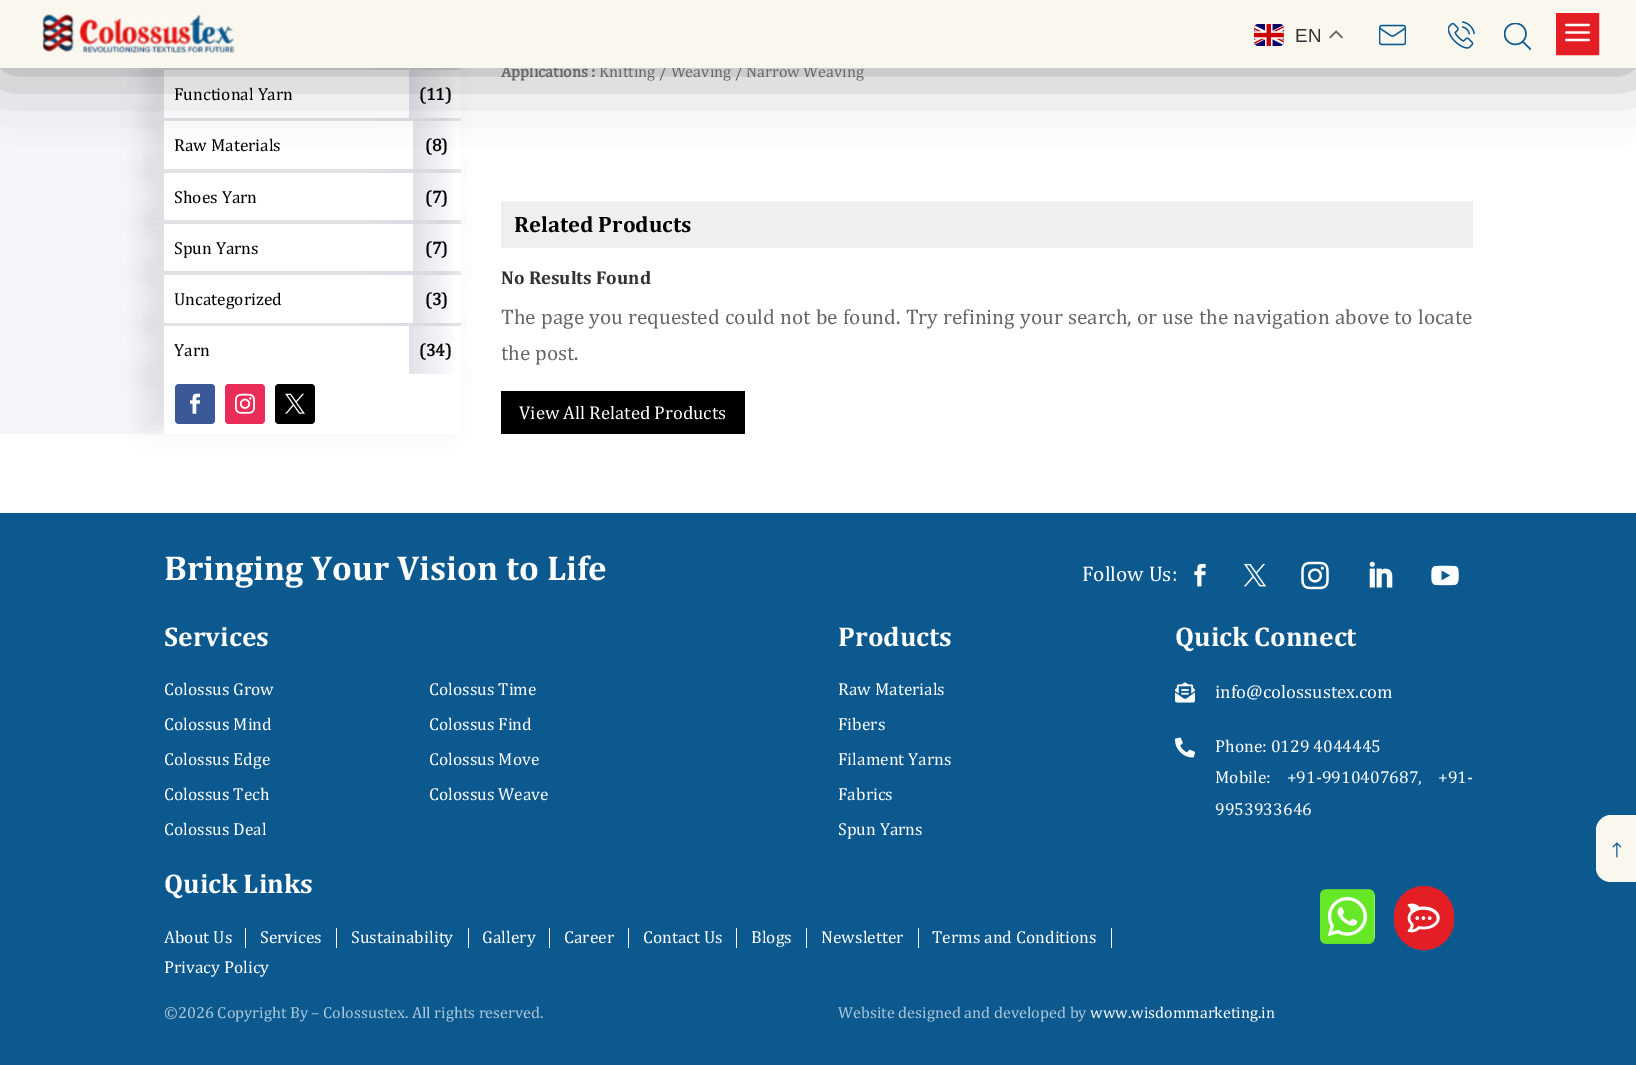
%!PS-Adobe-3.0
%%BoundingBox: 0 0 1636 1065
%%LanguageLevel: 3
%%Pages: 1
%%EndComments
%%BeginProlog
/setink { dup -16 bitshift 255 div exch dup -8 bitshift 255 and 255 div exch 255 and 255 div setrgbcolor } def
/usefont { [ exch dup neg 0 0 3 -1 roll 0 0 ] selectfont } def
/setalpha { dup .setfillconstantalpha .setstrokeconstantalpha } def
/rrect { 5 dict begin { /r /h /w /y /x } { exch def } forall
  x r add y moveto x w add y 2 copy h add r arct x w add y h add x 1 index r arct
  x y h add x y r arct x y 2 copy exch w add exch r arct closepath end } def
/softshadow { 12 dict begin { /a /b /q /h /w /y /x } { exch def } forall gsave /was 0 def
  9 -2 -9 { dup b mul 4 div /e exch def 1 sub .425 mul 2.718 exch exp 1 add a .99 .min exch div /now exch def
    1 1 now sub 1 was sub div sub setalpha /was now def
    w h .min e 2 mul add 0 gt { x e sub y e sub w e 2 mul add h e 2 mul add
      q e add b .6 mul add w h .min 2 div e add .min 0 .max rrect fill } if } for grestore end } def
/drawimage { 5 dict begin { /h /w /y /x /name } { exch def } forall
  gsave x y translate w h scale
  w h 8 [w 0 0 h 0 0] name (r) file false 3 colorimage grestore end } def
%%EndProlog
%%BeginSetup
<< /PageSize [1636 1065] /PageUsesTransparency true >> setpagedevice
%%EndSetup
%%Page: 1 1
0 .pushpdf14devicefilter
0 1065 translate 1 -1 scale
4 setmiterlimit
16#FFFFFF setink
0 0 1636 1065 rectfill
gsave 0 68 moveto 384 68 lineto 384 434 lineto 0 434 lineto closepath clip newpath
<< /ShadingType 2 /ColorSpace /DeviceRGB /Coords [0 -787 1636 -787] /Extend [true true] /Function << /FunctionType 3 /Domain [0 1] /Functions [<< /FunctionType 2 /Domain [0 1] /C0 [0.961 0.961 0.98] /C1 [0.961 0.961 0.98] /N 1 >> << /FunctionType 2 /Domain [0 1] /C0 [0.961 0.961 0.98] /C1 [1 1 1] /N 1 >> << /FunctionType 2 /Domain [0 1] /C0 [1 1 1] /C1 [1 1 1] /N 1 >>] /Bounds [0.22 0.24] /Encode [0 1 0 1 0 1] >> >> shfill grestore
gsave 365 68 moveto 461 68 lineto 461 326 lineto 365 326 lineto closepath clip newpath
<< /ShadingType 2 /ColorSpace /DeviceRGB /Coords [504 -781 121 -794] /Extend [true true] /Function << /FunctionType 3 /Domain [0 1] /Functions [<< /FunctionType 2 /Domain [0 1] /C0 [0.922 0.922 0.941] /C1 [0.961 0.961 0.98] /N 1 >> << /FunctionType 2 /Domain [0 1] /C0 [0.961 0.961 0.98] /C1 [0.961 0.961 0.98] /N 1 >>] /Bounds [0.28] /Encode [0 1 0 1] >> >> shfill grestore
16#20202C setink
145 16 303 53 0 11 0.09 softshadow
145 68 303 52 0 11 0.09 softshadow
145 119 303 52 0 11 0.09 softshadow
16#FFFFFF setink
164 70 245 48 rectfill
gsave 409 70 moveto 461 70 lineto 461 118 lineto 409 118 lineto closepath clip newpath
<< /ShadingType 2 /ColorSpace /DeviceRGB /Coords [461 94 409 94] /Extend [true true] /Function << /FunctionType 3 /Domain [0 1] /Functions [<< /FunctionType 2 /Domain [0 1] /C0 [1 1 1] /C1 [1 1 1] /N 1 >> << /FunctionType 2 /Domain [0 1] /C0 [1 1 1] /C1 [0.882 0.882 0.914] /N 1 >>] /Bounds [0.08] /Encode [0 1 0 1] >> >> shfill grestore
16#20202C setink
145 170 303 53 0 11 0.09 softshadow
16#FFFFFF setink
164 121 249 48 rectfill
gsave 413 121 moveto 461 121 lineto 461 169 lineto 413 169 lineto closepath clip newpath
<< /ShadingType 2 /ColorSpace /DeviceRGB /Coords [461 145 413 145] /Extend [true true] /Function << /FunctionType 3 /Domain [0 1] /Functions [<< /FunctionType 2 /Domain [0 1] /C0 [1 1 1] /C1 [1 1 1] /N 1 >> << /FunctionType 2 /Domain [0 1] /C0 [1 1 1] /C1 [0.882 0.882 0.914] /N 1 >>] /Bounds [0.08] /Encode [0 1 0 1] >> >> shfill grestore
16#000000 setink
0 0 1636 68 0 34.5 0.4 softshadow
/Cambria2-Bold 16.25 usefont
16#666666 setink
501 77 moveto (Applications :) show
/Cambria-Regular 16.25 usefont
599 77 moveto (Knitting / Weaving / Narrow Weaving) show
16#FAF7EF setink
0 0 1636 68 rectfill
(img1.raw) 42 13 193 41 drawimage
(img2.raw) 1254 24 30 22 drawimage
/LiberationSans-Regular 18.75 usefont
16#333333 setink
1295 42 moveto (EN) show
(img3.raw) 1329 30 14 9 drawimage
(img4.raw) 1379 24 27 22 drawimage
(img5.raw) 1448 21 27 28 drawimage
(img6.raw) 1504 23 27 27 drawimage
16#E31E25 setink
1556.5 13.5 42 41 0.5 rrect gsave fill grestore
stroke
(img7.raw) 1565 23 25 19 drawimage
/Cambria-Regular 17.5 usefont
16#000000 setink
174 100 moveto (Functional Yarn) show
/Cambria2-Bold 17.5 usefont
419 100 moveto (\(11\)) show
/Cambria-Regular 17.5 usefont
174 151 moveto (Raw Materials) show
/Cambria2-Bold 17.5 usefont
425 151 moveto (\(8\)) show
16#20202C setink
145 221 303 53 0 11 0.09 softshadow
16#FFFFFF setink
164 173 249 47 rectfill
/Cambria-Regular 17.5 usefont
16#000000 setink
174 203 moveto (Shoes Yarn) show
gsave 413 173 moveto 461 173 lineto 461 220 lineto 413 220 lineto closepath clip newpath
<< /ShadingType 2 /ColorSpace /DeviceRGB /Coords [461 196 413 196] /Extend [true true] /Function << /FunctionType 3 /Domain [0 1] /Functions [<< /FunctionType 2 /Domain [0 1] /C0 [1 1 1] /C1 [1 1 1] /N 1 >> << /FunctionType 2 /Domain [0 1] /C0 [1 1 1] /C1 [0.882 0.882 0.914] /N 1 >>] /Bounds [0.08] /Encode [0 1 0 1] >> >> shfill grestore
/Cambria2-Bold 17.5 usefont
425 203 moveto (\(7\)) show
16#20202C setink
145 273 303 52 0 11 0.09 softshadow
16#FFFFFF setink
164 224 249 47 rectfill
/Cambria-Regular 17.5 usefont
16#000000 setink
174 254 moveto (Spun Yarns) show
gsave 413 224 moveto 461 224 lineto 461 271 lineto 413 271 lineto closepath clip newpath
<< /ShadingType 2 /ColorSpace /DeviceRGB /Coords [461 248 413 248] /Extend [true true] /Function << /FunctionType 3 /Domain [0 1] /Functions [<< /FunctionType 2 /Domain [0 1] /C0 [1 1 1] /C1 [1 1 1] /N 1 >> << /FunctionType 2 /Domain [0 1] /C0 [1 1 1] /C1 [0.882 0.882 0.914] /N 1 >>] /Bounds [0.08] /Encode [0 1 0 1] >> >> shfill grestore
/Cambria2-Bold 17.5 usefont
425 254 moveto (\(7\)) show
16#20202C setink
145 324 303 52 0 11 0.09 softshadow
16#FFFFFF setink
164 275 249 48 rectfill
/Cambria-Regular 17.5 usefont
16#000000 setink
174 305 moveto (Uncategorized) show
gsave 413 275 moveto 461 275 lineto 461 323 lineto 413 323 lineto closepath clip newpath
<< /ShadingType 2 /ColorSpace /DeviceRGB /Coords [461 299 413 299] /Extend [true true] /Function << /FunctionType 3 /Domain [0 1] /Functions [<< /FunctionType 2 /Domain [0 1] /C0 [1 1 1] /C1 [1 1 1] /N 1 >> << /FunctionType 2 /Domain [0 1] /C0 [1 1 1] /C1 [0.882 0.882 0.914] /N 1 >>] /Bounds [0.08] /Encode [0 1 0 1] >> >> shfill grestore
/Cambria2-Bold 17.5 usefont
425 305 moveto (\(3\)) show
16#20202C setink
145 375 303 53 0 11 0.09 softshadow
16#FFFFFF setink
164 326 245 48 rectfill
/Cambria-Regular 17.5 usefont
16#000000 setink
174 356 moveto (Yarn) show
gsave 409 326 moveto 461 326 lineto 461 374 lineto 409 374 lineto closepath clip newpath
<< /ShadingType 2 /ColorSpace /DeviceRGB /Coords [461 350 409 350] /Extend [true true] /Function << /FunctionType 3 /Domain [0 1] /Functions [<< /FunctionType 2 /Domain [0 1] /C0 [1 1 1] /C1 [1 1 1] /N 1 >> << /FunctionType 2 /Domain [0 1] /C0 [1 1 1] /C1 [0.882 0.882 0.914] /N 1 >>] /Bounds [0.08] /Encode [0 1 0 1] >> >> shfill grestore
/Cambria2-Bold 17.5 usefont
419 356 moveto (\(34\)) show
16#FFFFFF setink
164 374 297 60 rectfill
16#3B5998 setink
175 384 40 40 4 rrect fill
(img8.raw) 190 393 10 21 drawimage
16#EA2C59 setink
225 384 40 40 4 rrect fill
(img9.raw) 235 393 20 21 drawimage
16#000000 setink
275 384 40 40 4 rrect fill
(img10.raw) 285 393 20 21 drawimage
16#EFEFEF setink
501 201 972 47 rectfill
/Cambria-Bold 22.5 usefont
16#000000 setink
514 232 moveto (Related Products) show
/Cambria-Bold 18.75 usefont
16#333333 setink
501 284 moveto (No Results Found) show
/Cambria-Regular 21.25 usefont
16#666666 setink
501 324 moveto 0.6 0 32 (The page you requested could not be found. Try refining your search, or use the navigation above to locate) widthshow
501 360 moveto (the post.) show
16#000000 setink
501 391 244 43 rectfill
/Cambria-Regular 18.75 usefont
16#FFFFFF setink
519 419 moveto (View All Related Products) show
16#0C598F setink
0 513 1636 552 rectfill
/Cambria-Bold 35 usefont
16#FFFFFF setink
164 580 moveto (Bringing Your Vision to Life) show
/Cambria-Regular 21.25 usefont
1082 581 moveto (Follow Us:) show
(img11.raw) 1194 563 12 24 drawimage
(img12.raw) 1243 563 24 24 drawimage
(img13.raw) 1301 561 28 29 drawimage
(img14.raw) 1369 561 24 27 drawimage
(img15.raw) 1431 565 28 21 drawimage
/Cambria-Bold 27.5 usefont
164 646 moveto (Services) show
/Cambria-Regular 17.5 usefont
[
    [(Colossus Grow) 164 695]
    [(Colossus Time) 429 695]
    [(Colossus Mind) 164 730]
    [(Colossus Find) 429 730]
    [(Colossus Edge) 164 765]
    [(Colossus Move) 429 765]
    [(Colossus Tech) 164 800]
    [(Colossus Weave) 429 800]
    [(Colossus Deal) 164 835]
] { aload pop moveto show } forall
/Cambria-Bold 27.5 usefont
838 646 moveto (Products) show
/Cambria-Regular 17.5 usefont
[
    [(Raw Materials) 838 695]
    [(Fibers) 838 730]
    [(Filament Yarns) 838 765]
    [(Fabrics) 838 800]
    [(Spun Yarns) 838 835]
] { aload pop moveto show } forall
/Cambria-Bold 27.5 usefont
1175 646 moveto (Quick Connect) show
(img16.raw) 1175 682 20 21 drawimage
/Cambria-Regular 18.75 usefont
1215 698 moveto (info@colossustex.com) show
(img17.raw) 1175 737 20 21 drawimage
/Cambria-Regular 17.5 usefont
1215 752 moveto (Phone: 0129 4044445) show
1215 783 moveto 12 0 32 (Mobile: +91-9910407687,) widthshow
1438 783 moveto (+91-) show
1215 815 moveto (9953933646) show
/Cambria-Bold 27.5 usefont
164 893 moveto (Quick Links) show
245 928 1 20 rectfill
/Cambria-Regular 17.5 usefont
164 943 moveto (About Us) show
336 928 1 20 rectfill
260 943 moveto (Services) show
468 928 1 20 rectfill
351 943 moveto (Sustainability) show
549 928 1 20 rectfill
482 943 moveto (Gallery) show
628 928 1 20 rectfill
564 943 moveto (Career) show
736 928 1 20 rectfill
643 943 moveto (Contact Us) show
806 928 1 20 rectfill
751 943 moveto (Blogs) show
918 928 1 20 rectfill
821 943 moveto (Newsletter) show
1111 928 1 20 rectfill
932 943 moveto (Terms and Conditions) show
164 973 moveto (Privacy Policy) show
1327 895 48 43 rectfill
(img18.raw) 1320 889 55 55 drawimage
16#E31E25 setink
1394 886 60 64 30 rrect fill
(img19.raw) 1407 903 33 30 drawimage
/Cambria-Regular 16.25 usefont
16#ACC7D9 setink
164 1018 moveto (©2026 Copyright By – Colossustex. All rights reserved.) show
838 1018 moveto (Website designed and developed by) show
16#FFFFFF setink
1090 1018 moveto (www.wisdommarketing.in) show
16#FAF7EF setink
1596 868 moveto 1596 830 lineto 1596 822 1603 815 1611 815 curveto 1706 815 lineto 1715 815 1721 822 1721 830 curveto 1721 868 lineto 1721 876 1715 882 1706 882 curveto 1611 882 lineto 1603 882 1596 876 1596 868 curveto closepath fill
(img20.raw) 1612 842 10 16 drawimage
.poppdf14devicefilter showpage
%%EOF
